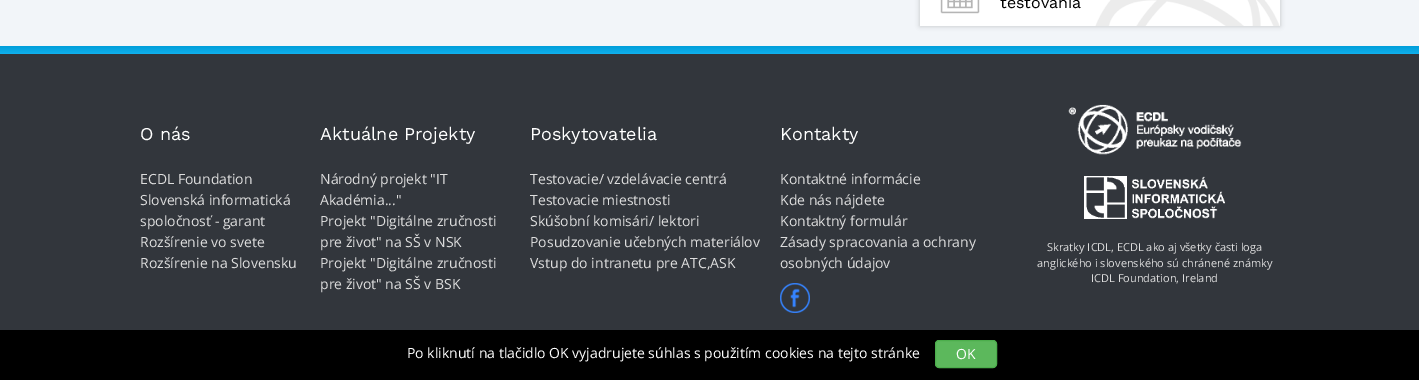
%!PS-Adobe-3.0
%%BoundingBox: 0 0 1419 380
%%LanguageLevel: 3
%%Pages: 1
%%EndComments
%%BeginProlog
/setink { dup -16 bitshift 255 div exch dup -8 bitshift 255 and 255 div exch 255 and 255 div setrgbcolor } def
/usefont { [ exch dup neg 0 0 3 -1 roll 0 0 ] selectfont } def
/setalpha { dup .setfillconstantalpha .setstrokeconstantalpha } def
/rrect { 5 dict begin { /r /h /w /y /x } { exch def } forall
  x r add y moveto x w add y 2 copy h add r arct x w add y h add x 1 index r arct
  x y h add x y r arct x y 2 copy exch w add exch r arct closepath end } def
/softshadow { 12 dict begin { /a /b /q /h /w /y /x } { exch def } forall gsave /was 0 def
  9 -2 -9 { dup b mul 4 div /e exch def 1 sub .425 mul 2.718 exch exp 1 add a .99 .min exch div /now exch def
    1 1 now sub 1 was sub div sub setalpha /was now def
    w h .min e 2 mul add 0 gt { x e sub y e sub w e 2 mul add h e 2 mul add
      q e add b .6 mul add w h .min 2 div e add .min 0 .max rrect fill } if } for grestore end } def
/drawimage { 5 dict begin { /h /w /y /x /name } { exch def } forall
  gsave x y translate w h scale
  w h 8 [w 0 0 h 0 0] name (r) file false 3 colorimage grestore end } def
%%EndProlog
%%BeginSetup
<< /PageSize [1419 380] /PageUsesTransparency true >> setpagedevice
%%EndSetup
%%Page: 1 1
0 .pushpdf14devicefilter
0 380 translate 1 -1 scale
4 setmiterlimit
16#F2F5F9 setink
0 0 1419 380 rectfill
16#000000 setink
920 -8 360 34 0 2.5 0.2 softshadow
16#FFFFFF setink
920 0 360 26 rectfill
(img1.raw) 1095 0 185 26 drawimage
(img2.raw) 940 0 40 14 drawimage
/WorkSans-Regular 16 usefont
16#000000 setink
1000 8 moveto (testovania) show
gsave 0 46 moveto 1419 46 lineto 1419 54 lineto 0 54 lineto closepath clip newpath
<< /ShadingType 2 /ColorSpace /DeviceRGB /Coords [710 46 710 54] /Extend [true true] /Function << /FunctionType 2 /Domain [0 1] /C0 [0 0.62 0.855] /C1 [0.063 0.69 0.925] /N 1 >> >> shfill grestore
16#32363C setink
0 54 1419 276 rectfill
/WorkSans-Regular 18 usefont
16#FFFFFF setink
140 140 moveto (O nás) show
/OpenSans-Regular 14 usefont
16#DDDDDD setink
[
    [(ECDL Foundation) 140 184]
    [(Slovenská informatická) 140 205]
    [(spoločnosť - garant) 140 226]
    [(Rozšírenie vo svete) 140 247]
    [(Rozšírenie na Slovensku) 140 268]
] { aload pop moveto show } forall
/WorkSans-Regular 18 usefont
16#FFFFFF setink
320 140 moveto (Aktuálne Projekty) show
/OpenSans-Regular 14 usefont
16#DDDDDD setink
[
    [(Národný projekt "IT) 320 184]
    [(Akadémia...") 320 205]
    [(Projekt "Digitálne zručnosti) 320 226]
    [(pre život" na SŠ v NSK) 320 247]
    [(Projekt "Digitálne zručnosti) 320 268]
    [(pre život" na SŠ v BSK) 320 289]
] { aload pop moveto show } forall
/WorkSans-Regular 18 usefont
16#FFFFFF setink
530 140 moveto (Poskytovatelia) show
/OpenSans-Regular 14 usefont
16#DDDDDD setink
[
    [(Testovacie/ vzdelávacie centrá) 530 184]
    [(Testovacie miestnosti) 530 205]
    [(Skúšobní komisári/ lektori) 530 226]
    [(Posudzovanie učebných materiálov) 530 247]
    [(Vstup do intranetu pre ATC,ASK) 530 268]
] { aload pop moveto show } forall
/WorkSans-Regular 18 usefont
16#FFFFFF setink
780 140 moveto (Kontakty) show
/OpenSans-Regular 14 usefont
16#DDDDDD setink
[
    [(Kontaktné informácie) 780 184]
    [(Kde nás nájdete) 780 205]
    [(Kontaktný formulár) 780 226]
    [(Zásady spracovania a ochrany) 780 247]
    [(osobných údajov) 780 268]
] { aload pop moveto show } forall
(img3.raw) 780 283 30 30 drawimage
(img4.raw) 1068 104 174 51 drawimage
(img5.raw) 1084 176 141 43 drawimage
/OpenSans-Regular 11 usefont
[
    [(Skratky ICDL, ECDL ako aj všetky časti loga) 1047 251]
    [(anglického i slovenského sú chránené známky) 1037 267]
    [(ICDL Foundation, Ireland) 1091 282]
] { aload pop moveto show } forall
16#000000 setink
0 330 1419 50 rectfill
/OpenSans-Regular 14 usefont
16#FFFFFF setink
407 358 moveto (Po kliknutí na tlačidlo OK vyjadrujete súhlas s použitím cookies na tejto stránke) show
16#5CB85C setink
935.5 340.5 61 27 3.5 rrect gsave fill grestore
16#4CAE4C setink
stroke
16#FFFFFF setink
956 359 moveto (OK) show
.poppdf14devicefilter showpage
%%EOF
